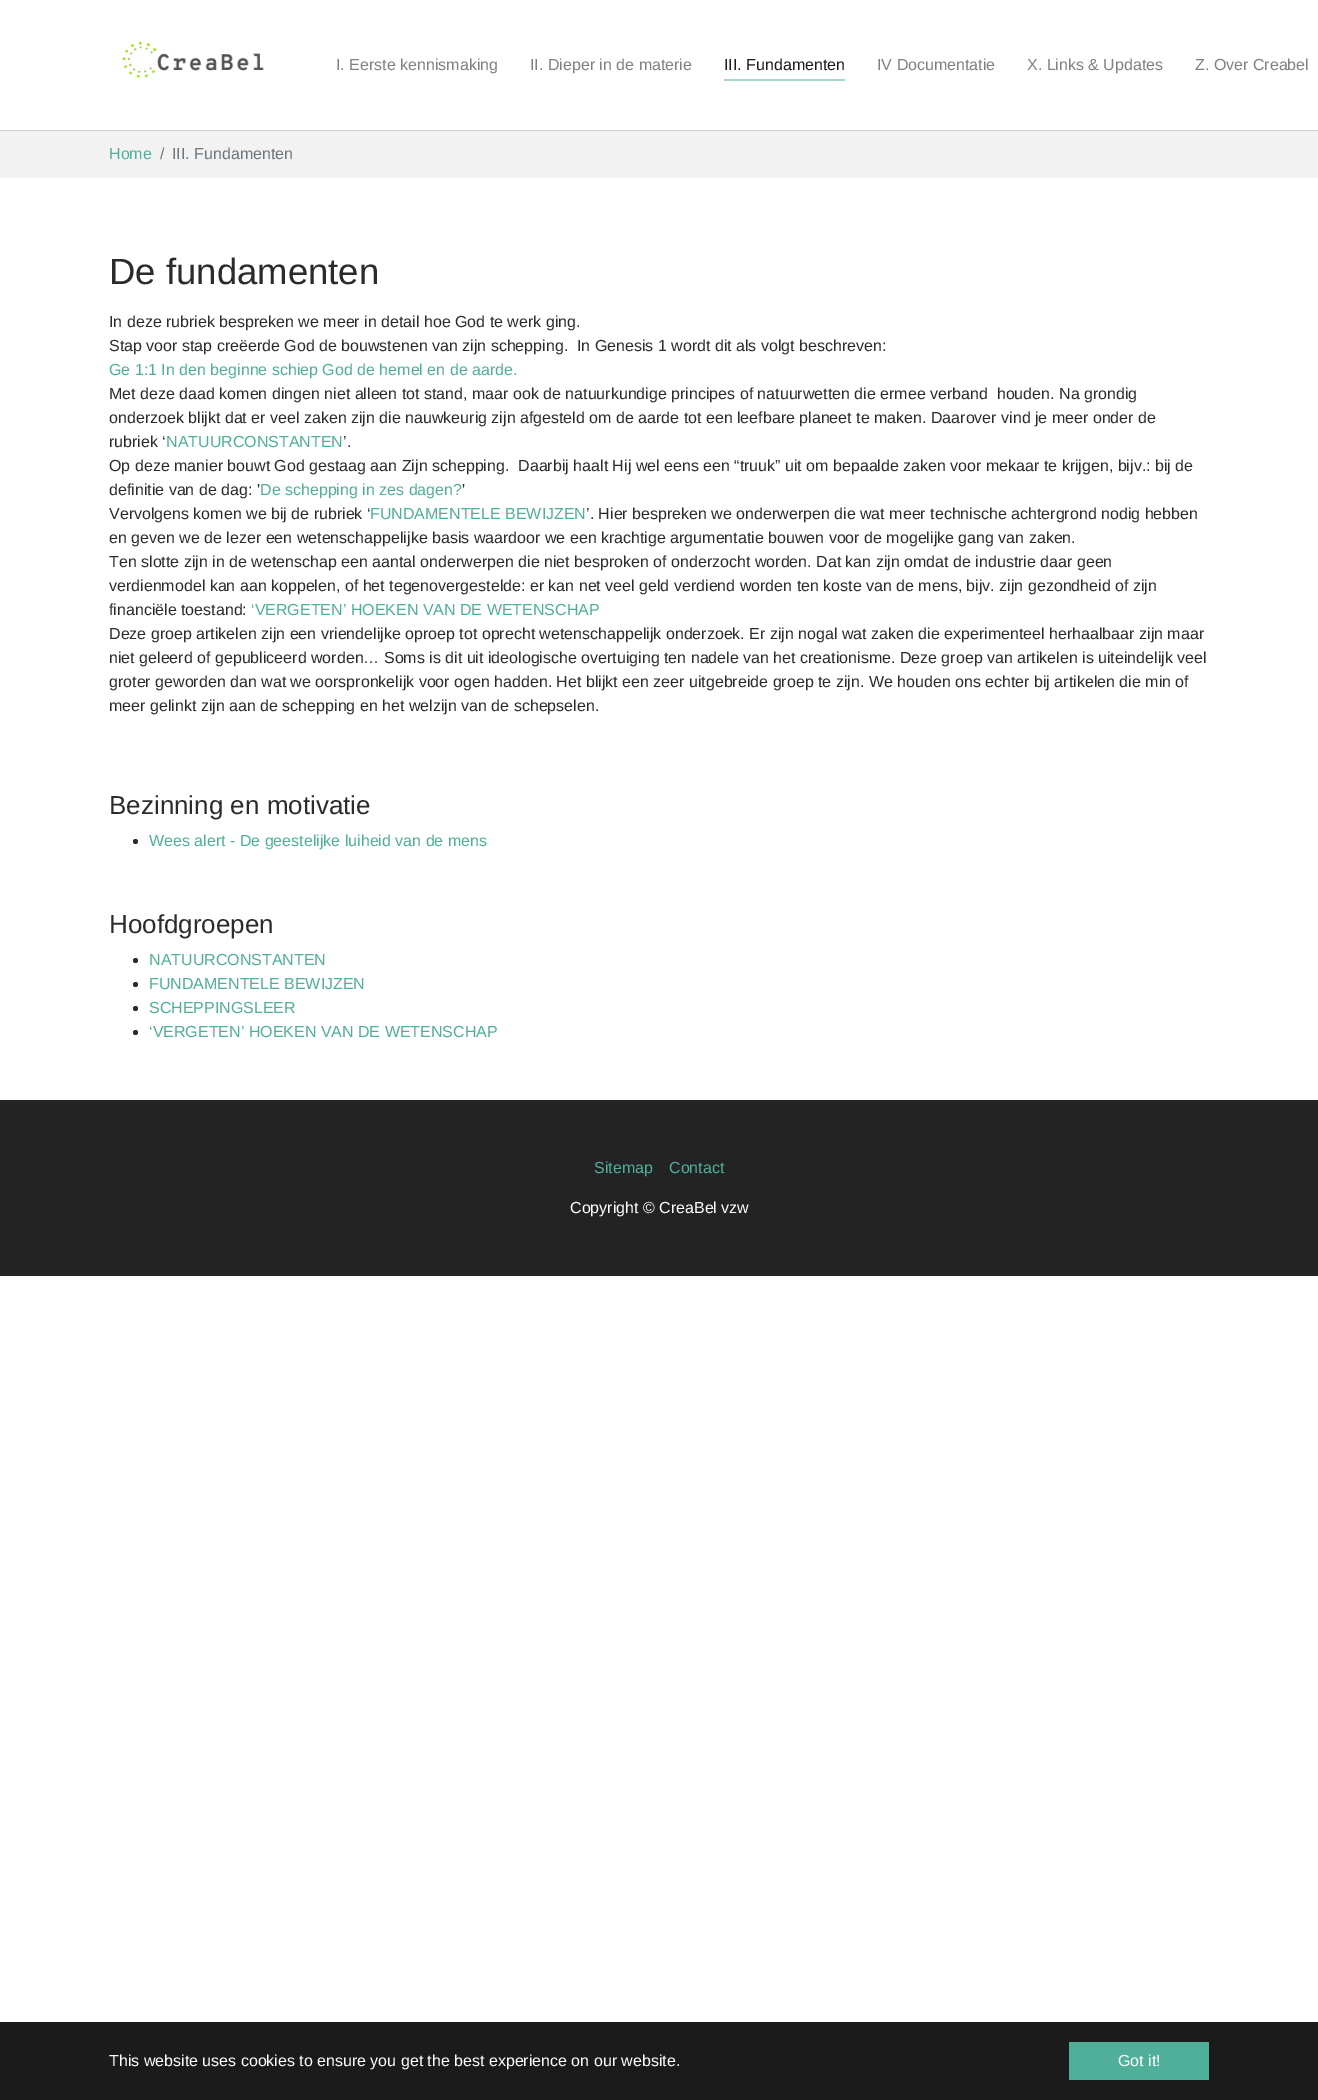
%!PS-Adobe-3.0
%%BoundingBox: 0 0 1318 2100
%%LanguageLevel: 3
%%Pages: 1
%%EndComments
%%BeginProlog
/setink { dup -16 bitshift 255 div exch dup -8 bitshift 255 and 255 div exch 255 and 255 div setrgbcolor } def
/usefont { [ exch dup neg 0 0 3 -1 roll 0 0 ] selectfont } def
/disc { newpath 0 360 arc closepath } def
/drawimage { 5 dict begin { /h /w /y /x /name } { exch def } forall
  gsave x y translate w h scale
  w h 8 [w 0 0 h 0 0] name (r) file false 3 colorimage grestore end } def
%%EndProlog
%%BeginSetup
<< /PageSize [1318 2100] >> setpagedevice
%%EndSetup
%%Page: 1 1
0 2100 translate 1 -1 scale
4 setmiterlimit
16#FFFFFF setink
0 0 1318 2100 rectfill
16#CECECE setink
0 130 1318 1 rectfill
(img1.raw) 122 41 142 38 drawimage
/LiberationSans-Regular 16 usefont
16#808080 setink
336 70 moveto (I. Eerste kennismaking) show
530 70 moveto (II. Dieper in de materie) show
16#1A1A1A setink
724 70 moveto (III. Fundamenten) show
16#A7D7CC setink
724 79 121 2 rectfill
16#808080 setink
[
    [(IV Documentatie) 877 70]
    [(X. Links & Updates) 1027 70]
    [(Z. Over Creabel) 1195 70]
] { aload pop moveto show } forall
16#F2F2F2 setink
0 131 1318 47 rectfill
16#4FAF98 setink
109 159 moveto (Home) show
16#6C757D setink
160 159 moveto (/) show
172 159 moveto (III. Fundamenten) show
/LiberationSans-Regular 36.5 usefont
16#2B2B2B setink
109 284 moveto (De fundamenten) show
/LiberationSans-Regular 16 usefont
109 327 moveto (In deze rubriek bespreken we meer in detail hoe God te werk ging.) show
109 351 moveto (Stap voor stap creëerde God de bouwstenen van zijn schepping.  In Genesis 1 wordt dit als volgt beschreven:) show
16#4FAF98 setink
109 375 moveto (Ge 1:1 In den beginne schiep God de hemel en de aarde.) show
16#2B2B2B setink
[
    [(Met deze daad komen dingen niet alleen tot stand, maar ook de natuurkundige principes of natuurwetten die ermee verband  houden. Na grondig) 109 399]
    [(onderzoek blijkt dat er veel zaken zijn die nauwkeurig zijn afgesteld om de aarde tot een leefbare planeet te maken. Daarover vind je meer onder de) 109 423]
    [(rubriek ‘) 109 447]
] { aload pop moveto show } forall
16#4FAF98 setink
166 447 moveto (NATUURCONSTANTEN) show
16#2B2B2B setink
[
    [(’.) 343 447]
    [(Op deze manier bouwt God gestaag aan Zijn schepping.  Daarbij haalt Hij wel eens een “truuk” uit om bepaalde zaken voor mekaar te krijgen, bijv.: bij de) 109 471]
    [(definitie van de dag: ') 109 495]
] { aload pop moveto show } forall
16#4FAF98 setink
260 495 moveto (De schepping in zes dagen?) show
16#2B2B2B setink
462 495 moveto (') show
109 519 moveto (Vervolgens komen we bij de rubriek ‘) show
16#4FAF98 setink
370 519 moveto (FUNDAMENTELE BEWIJZEN) show
16#2B2B2B setink
[
    [(’. Hier bespreken we onderwerpen die wat meer technische achtergrond nodig hebben) 586 519]
    [(en geven we de lezer een wetenschappelijke basis waardoor we een krachtige argumentatie bouwen voor de mogelijke gang van zaken.) 109 543]
    [(Ten slotte zijn in de wetenschap een aantal onderwerpen die niet besproken of onderzocht worden. Dat kan zijn omdat de industrie daar geen) 109 567]
    [(verdienmodel kan aan koppelen, of het tegenovergestelde: er kan net veel geld verdiend worden ten koste van de mens, bijv. zijn gezondheid of zijn) 109 591]
    [(financiële toestand:) 109 615]
] { aload pop moveto show } forall
16#4FAF98 setink
251 615 moveto (‘VERGETEN’ HOEKEN VAN DE WETENSCHAP) show
16#2B2B2B setink
[
    [(Deze groep artikelen zijn een vriendelijke oproep tot oprecht wetenschappelijk onderzoek. Er zijn nogal wat zaken die experimenteel herhaalbaar zijn maar) 109 639]
    [(niet geleerd of gepubliceerd worden… Soms is dit uit ideologische overtuiging ten nadele van het creationisme. Deze groep van artikelen is uiteindelijk veel) 109 663]
    [(groter geworden dan wat we oorspronkelijk voor ogen hadden. Het blijkt een zeer uitgebreide groep te zijn. We houden ons echter bij artikelen die min of) 109 687]
    [(meer gelinkt zijn aan de schepping en het welzijn van de schepselen.) 109 711]
] { aload pop moveto show } forall
/LiberationSans-Regular 26 usefont
109 814 moveto (Bezinning en motivatie) show
135.5 841.5 2.5 disc fill
/LiberationSans-Regular 16 usefont
16#4FAF98 setink
149 846 moveto (Wees alert - De geestelijke luiheid van de mens) show
/LiberationSans-Regular 26 usefont
16#2B2B2B setink
109 933 moveto (Hoofdgroepen) show
135.5 960.5 2.5 disc fill
/LiberationSans-Regular 16 usefont
16#4FAF98 setink
149 965 moveto (NATUURCONSTANTEN) show
16#2B2B2B setink
135.5 984.5 2.5 disc fill
16#4FAF98 setink
149 989 moveto (FUNDAMENTELE BEWIJZEN) show
16#2B2B2B setink
135.5 1008.5 2.5 disc fill
16#4FAF98 setink
149 1013 moveto (SCHEPPINGSLEER) show
16#2B2B2B setink
135.5 1032.5 2.5 disc fill
16#4FAF98 setink
149 1037 moveto (‘VERGETEN’ HOEKEN VAN DE WETENSCHAP) show
16#232323 setink
0 1100 1318 176 rectfill
16#4FAF98 setink
594 1173 moveto (Sitemap) show
669 1173 moveto (Contact) show
16#FFFFFF setink
570 1213 moveto (Copyright © CreaBel vzw) show
16#1B1B1B setink
0 2022 1318 78 rectfill
16#FFFFFF setink
109 2066 moveto (This website uses cookies to ensure you get the best experience on our website.) show
16#4FAF98 setink
1069 2042 140 38 rectfill
16#FFFFFF setink
1118 2066 moveto (Got it!) show
showpage
%%EOF
